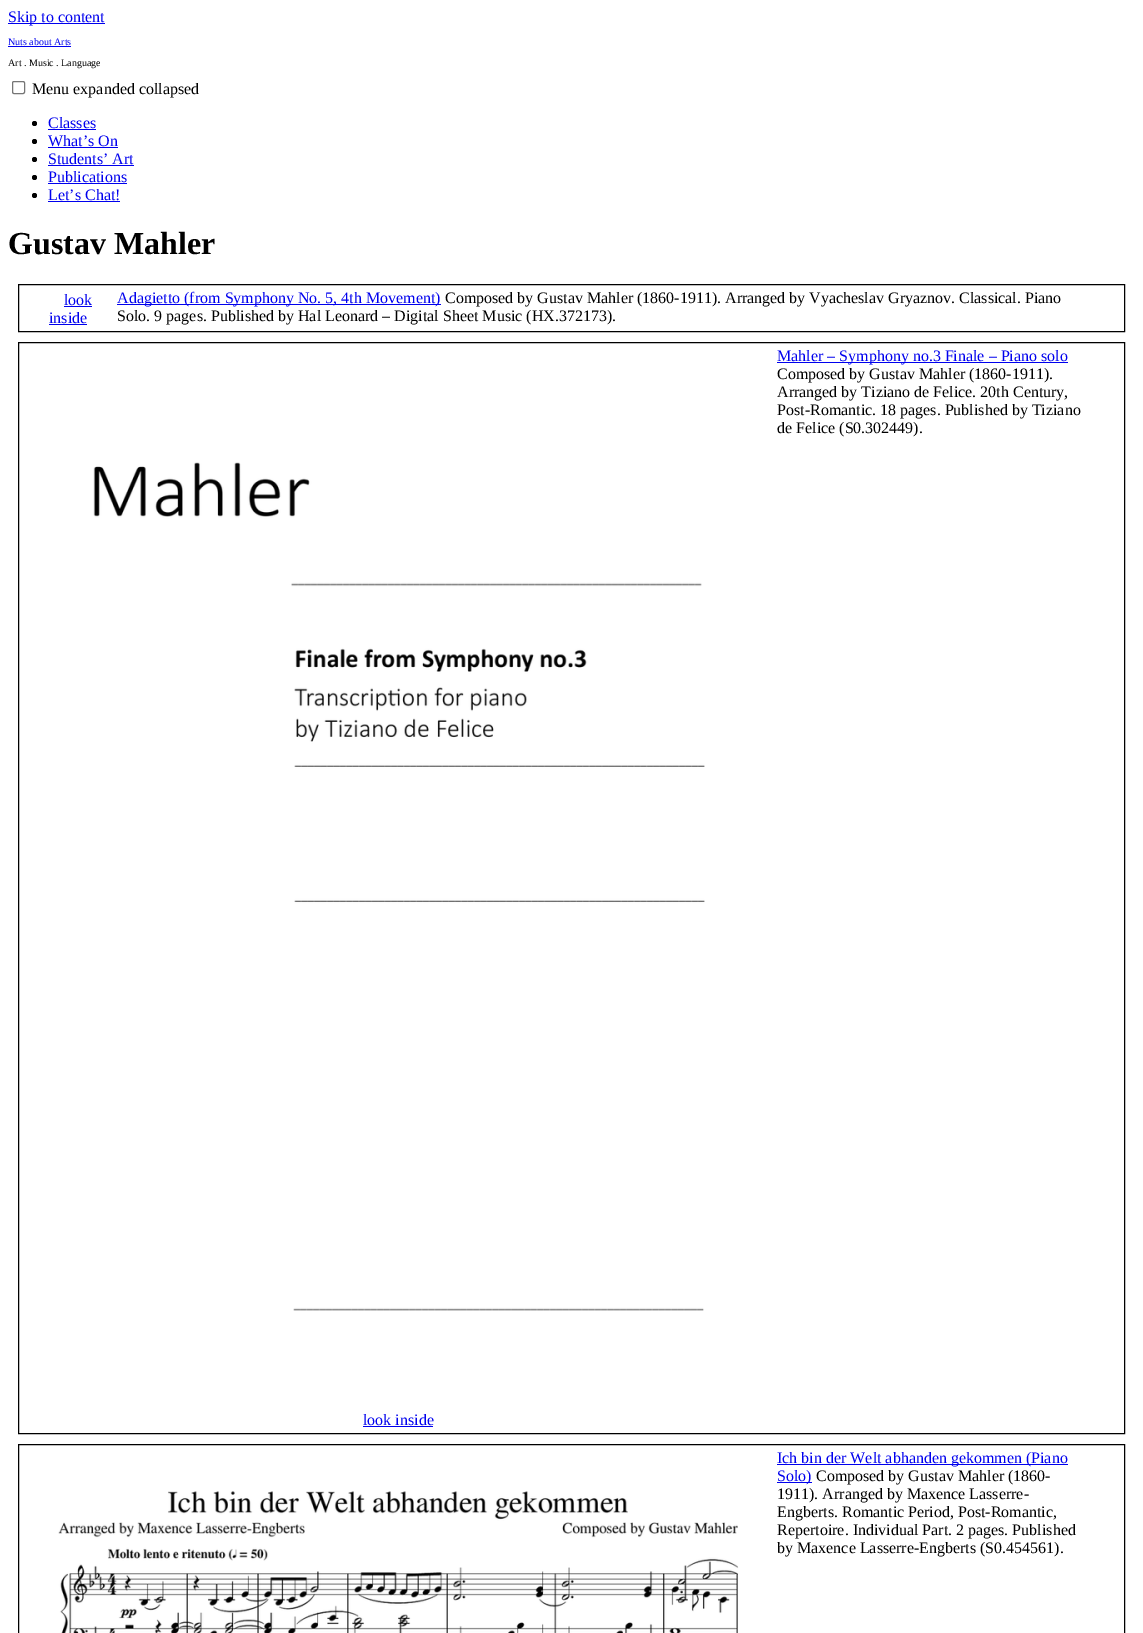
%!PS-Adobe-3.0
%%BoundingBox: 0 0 1143 1633
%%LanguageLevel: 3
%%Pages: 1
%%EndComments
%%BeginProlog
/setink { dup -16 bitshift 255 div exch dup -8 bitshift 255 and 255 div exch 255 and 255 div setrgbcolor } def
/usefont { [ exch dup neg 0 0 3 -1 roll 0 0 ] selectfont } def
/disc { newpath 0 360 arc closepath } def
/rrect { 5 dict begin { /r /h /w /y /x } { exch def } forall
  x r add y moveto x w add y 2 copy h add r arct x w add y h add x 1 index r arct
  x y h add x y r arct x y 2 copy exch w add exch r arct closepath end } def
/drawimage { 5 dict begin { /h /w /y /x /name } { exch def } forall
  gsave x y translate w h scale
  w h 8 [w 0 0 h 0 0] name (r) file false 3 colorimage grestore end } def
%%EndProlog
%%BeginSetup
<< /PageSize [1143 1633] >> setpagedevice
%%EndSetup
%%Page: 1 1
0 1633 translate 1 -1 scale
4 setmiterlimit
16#FFFFFF setink
0 0 1143 1633 rectfill
16#0000EE setink
8 23 97 1 rectfill
/LiberationSerif-Regular 16 usefont
8 22 moveto (Skip to content) show
/LiberationSerif-Regular 10 usefont
8 45 moveto (Nuts about Arts) show
8 46 63 1 rectfill
16#000000 setink
8 66 moveto (Art . Music . Language) show
16#767676 setink
12.5 81.5 12 12 1.5 rrect stroke
/LiberationSerif-Regular 16 usefont
16#000000 setink
32 94 moveto (Menu expanded collapsed) show
34.5 123.5 2.5 disc fill
16#0000EE setink
48 128 moveto (Classes) show
48 129 48 1 rectfill
16#000000 setink
34.5 141.5 2.5 disc fill
16#0000EE setink
48 146 moveto (What’s On) show
48 147 70 1 rectfill
16#000000 setink
34.5 159.5 2.5 disc fill
16#0000EE setink
48 164 moveto (Students’ Art) show
48 165 86 1 rectfill
16#000000 setink
34.5 177.5 2.5 disc fill
16#0000EE setink
48 182 moveto (Publications) show
48 183 79 1 rectfill
16#000000 setink
34.5 195.5 2.5 disc fill
16#0000EE setink
48 200 moveto (Let’s Chat!) show
48 201 72 1 rectfill
/LiberationSerif-Bold 32 usefont
16#000000 setink
8 254 moveto (Gustav Mahler) show
18.5 284.5 1106 47 rectstroke
/LiberationSerif-Regular 16 usefont
16#0000EE setink
64 305 moveto (look) show
64 306 28 1 rectfill
49 323 moveto (inside) show
49 324 38 1 rectfill
117 304 324 1 rectfill
117 303 moveto (Adagietto \(from Symphony No. 5, 4th Movement\)) show
16#000000 setink
445 303 moveto (Composed by Gustav Mahler \(1860-1911\). Arranged by Vyacheslav Gryaznov. Classical. Piano) show
117 321 moveto (Solo. 9 pages. Published by Hal Leonard – Digital Sheet Music \(HX.372173\).) show
18.5 342.5 1106 1091 rectstroke
16#0000EE setink
777 362 291 1 rectfill
777 361 moveto (Mahler – Symphony no.3 Finale – Piano solo) show
16#000000 setink
[
    [(Composed by Gustav Mahler \(1860-1911\).) 777 379]
    [(Arranged by Tiziano de Felice. 20th Century,) 777 397]
    [(Post-Romantic. 18 pages. Published by Tiziano) 777 415]
    [(de Felice \(S0.302449\).) 777 433]
] { aload pop moveto show } forall
(img1.raw) 93 462 612 849 drawimage
16#0000EE setink
363 1425 moveto (look inside) show
363 1426 70 1 rectfill
16#000000 setink
18.5 1444.5 1106 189 rectstroke
(img2.raw) 58 1491 681 142 drawimage
16#0000EE setink
777 1464 291 1 rectfill
777 1463 moveto (Ich bin der Welt abhanden gekommen \(Piano) show
777 1482 35 1 rectfill
777 1481 moveto (Solo\)) show
16#000000 setink
[
    [(Composed by Gustav Mahler \(1860-) 816 1481]
    [(1911\). Arranged by Maxence Lasserre-) 777 1499]
    [(Engberts. Romantic Period, Post-Romantic,) 777 1517]
    [(Repertoire. Individual Part. 2 pages. Published) 777 1535]
    [(by Maxence Lasserre-Engberts \(S0.454561\).) 777 1553]
] { aload pop moveto show } forall
showpage
%%EOF
